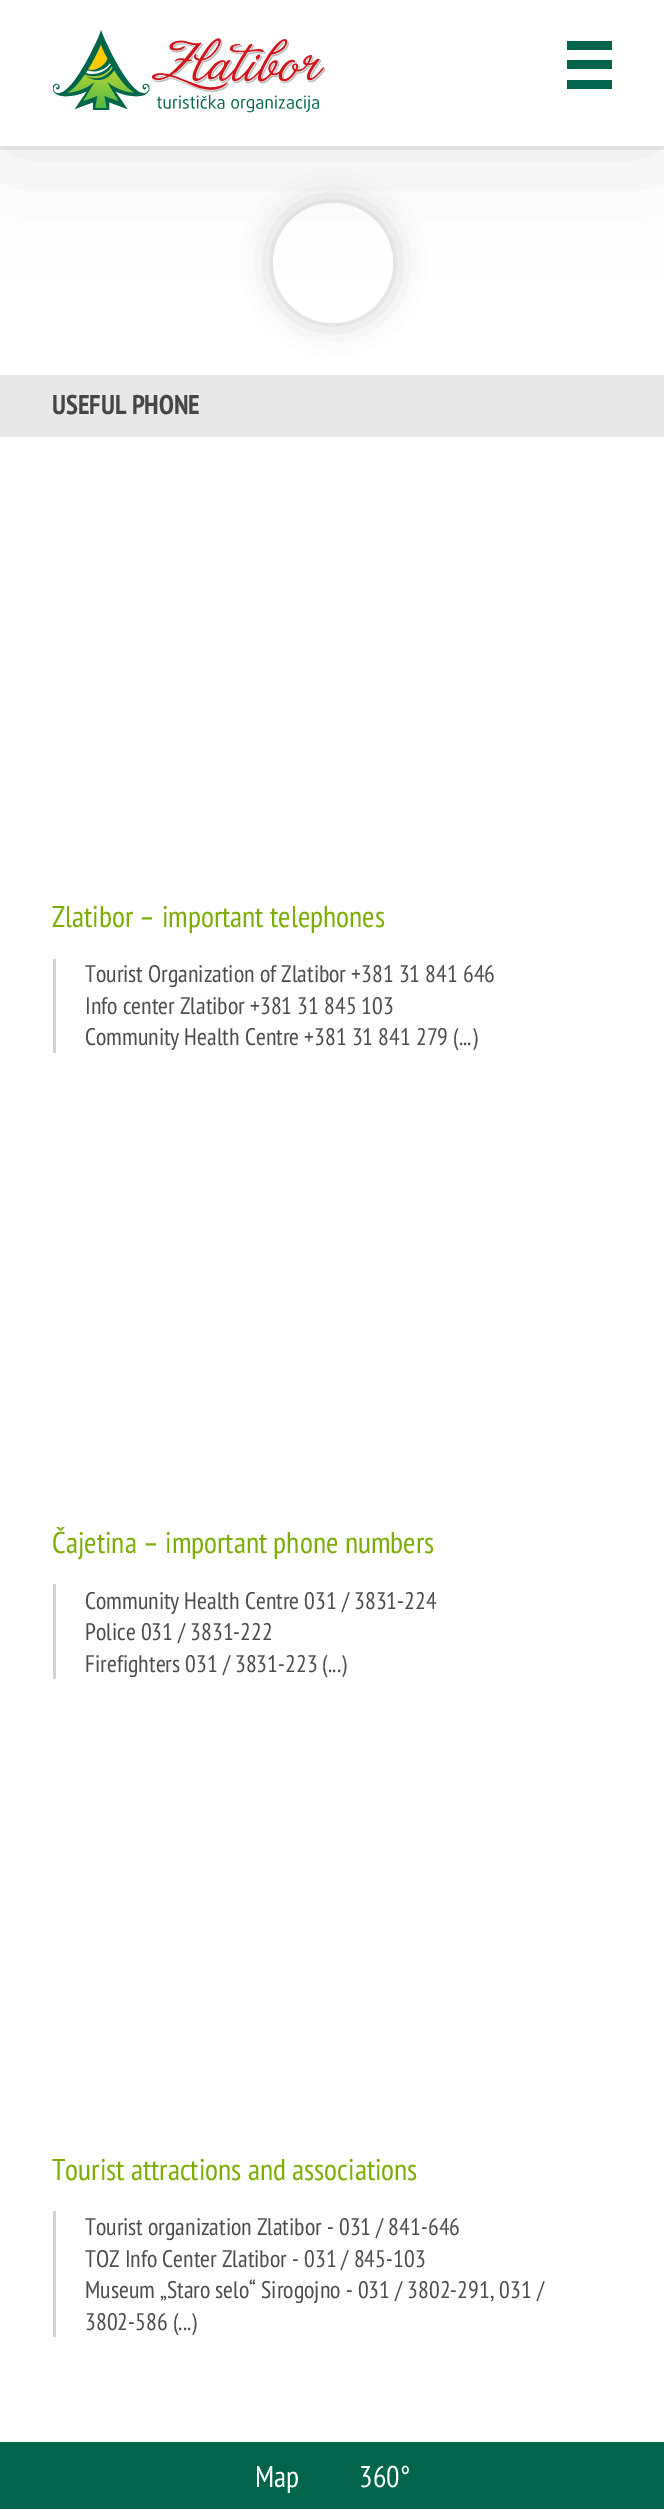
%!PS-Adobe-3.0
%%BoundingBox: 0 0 664 2509
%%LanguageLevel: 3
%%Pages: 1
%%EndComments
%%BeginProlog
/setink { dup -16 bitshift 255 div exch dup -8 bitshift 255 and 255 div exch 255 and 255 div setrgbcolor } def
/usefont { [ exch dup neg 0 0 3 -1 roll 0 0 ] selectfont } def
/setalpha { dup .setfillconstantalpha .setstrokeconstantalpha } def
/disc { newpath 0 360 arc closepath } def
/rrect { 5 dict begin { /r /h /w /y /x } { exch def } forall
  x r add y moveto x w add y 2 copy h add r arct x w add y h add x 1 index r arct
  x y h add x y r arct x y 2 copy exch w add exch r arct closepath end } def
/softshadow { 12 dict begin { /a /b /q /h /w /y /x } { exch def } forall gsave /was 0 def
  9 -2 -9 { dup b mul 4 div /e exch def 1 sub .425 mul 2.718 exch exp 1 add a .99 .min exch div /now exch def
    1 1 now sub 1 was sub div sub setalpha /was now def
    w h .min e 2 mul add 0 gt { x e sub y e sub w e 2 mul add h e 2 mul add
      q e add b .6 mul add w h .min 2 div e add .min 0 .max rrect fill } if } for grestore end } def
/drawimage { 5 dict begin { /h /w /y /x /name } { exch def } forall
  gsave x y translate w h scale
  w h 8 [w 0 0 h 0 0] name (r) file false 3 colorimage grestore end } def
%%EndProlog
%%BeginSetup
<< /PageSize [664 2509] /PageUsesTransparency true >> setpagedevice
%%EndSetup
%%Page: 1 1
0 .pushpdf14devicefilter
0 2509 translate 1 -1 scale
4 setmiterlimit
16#FFFFFF setink
0 0 664 2509 rectfill
16#EEEEEE setink
0 146 664 4 rectfill
16#000000 setink
273 203 120 120 60 15 0.2 softshadow
16#FFFFFF setink
333 263 60 disc fill
16#000000 setink
0 0 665 146 0 60 0.1 softshadow
16#FFFFFF setink
0 0 664 146 rectfill
(img1.raw) 53 30 273 83 drawimage
[
    [567 41 45 9 16#00654A]
    [567 60 45 9 16#00654A]
    [567 80 45 9 16#00654A]
    [0 375 664 62 16#E8E8E8]
] { aload pop setink rectfill } forall
/PTSansNarrow-Bold 27 usefont
16#464646 setink
52 414 moveto (USEFUL PHONE) show
/PTSansNarrow-Regular 30 usefont
16#7BAD02 setink
52 927 moveto (Zlatibor – important telephones) show
16#D3D3D3 setink
53 959 3 94 rectfill
/PTSansNarrow-Regular 24 usefont
16#4C4C4C setink
[
    [(Tourist Organization of Zlatibor +381 31 841 646) 85 982]
    [(Info center Zlatibor +381 31 845 103) 85 1014]
    [(Community Health Centre +381 31 841 279 \(...\)) 85 1045]
] { aload pop moveto show } forall
/PTSansNarrow-Regular 30 usefont
16#7BAD02 setink
52 1553 moveto (Čajetina – important phone numbers) show
16#D3D3D3 setink
53 1584 3 95 rectfill
/PTSansNarrow-Regular 24 usefont
16#4C4C4C setink
[
    [(Community Health Centre 031 / 3831-224) 85 1609]
    [(Police 031 / 3831-222) 85 1640]
    [(Firefighters 031 / 3831-223 \(...\)) 85 1672]
] { aload pop moveto show } forall
/PTSansNarrow-Regular 30 usefont
16#7BAD02 setink
52 2180 moveto (Tourist attractions and associations) show
16#D3D3D3 setink
53 2211 3 126 rectfill
/PTSansNarrow-Regular 24 usefont
16#4C4C4C setink
[
    [(Tourist organization Zlatibor - 031 / 841-646) 85 2235]
    [(TOZ Info Center Zlatibor - 031 / 845-103) 85 2267]
    [(Museum „Staro selo“ Sirogojno - 031 / 3802-291, 031 /) 85 2298]
    [(3802-586 \(...\)) 85 2330]
] { aload pop moveto show } forall
16#00654A setink
0 2442 664 67 rectfill
/PTSansNarrow-Regular 30 usefont
16#FFFFFF setink
255 2487 moveto (Map) show
359 2487 moveto (360°) show
.poppdf14devicefilter showpage
%%EOF
